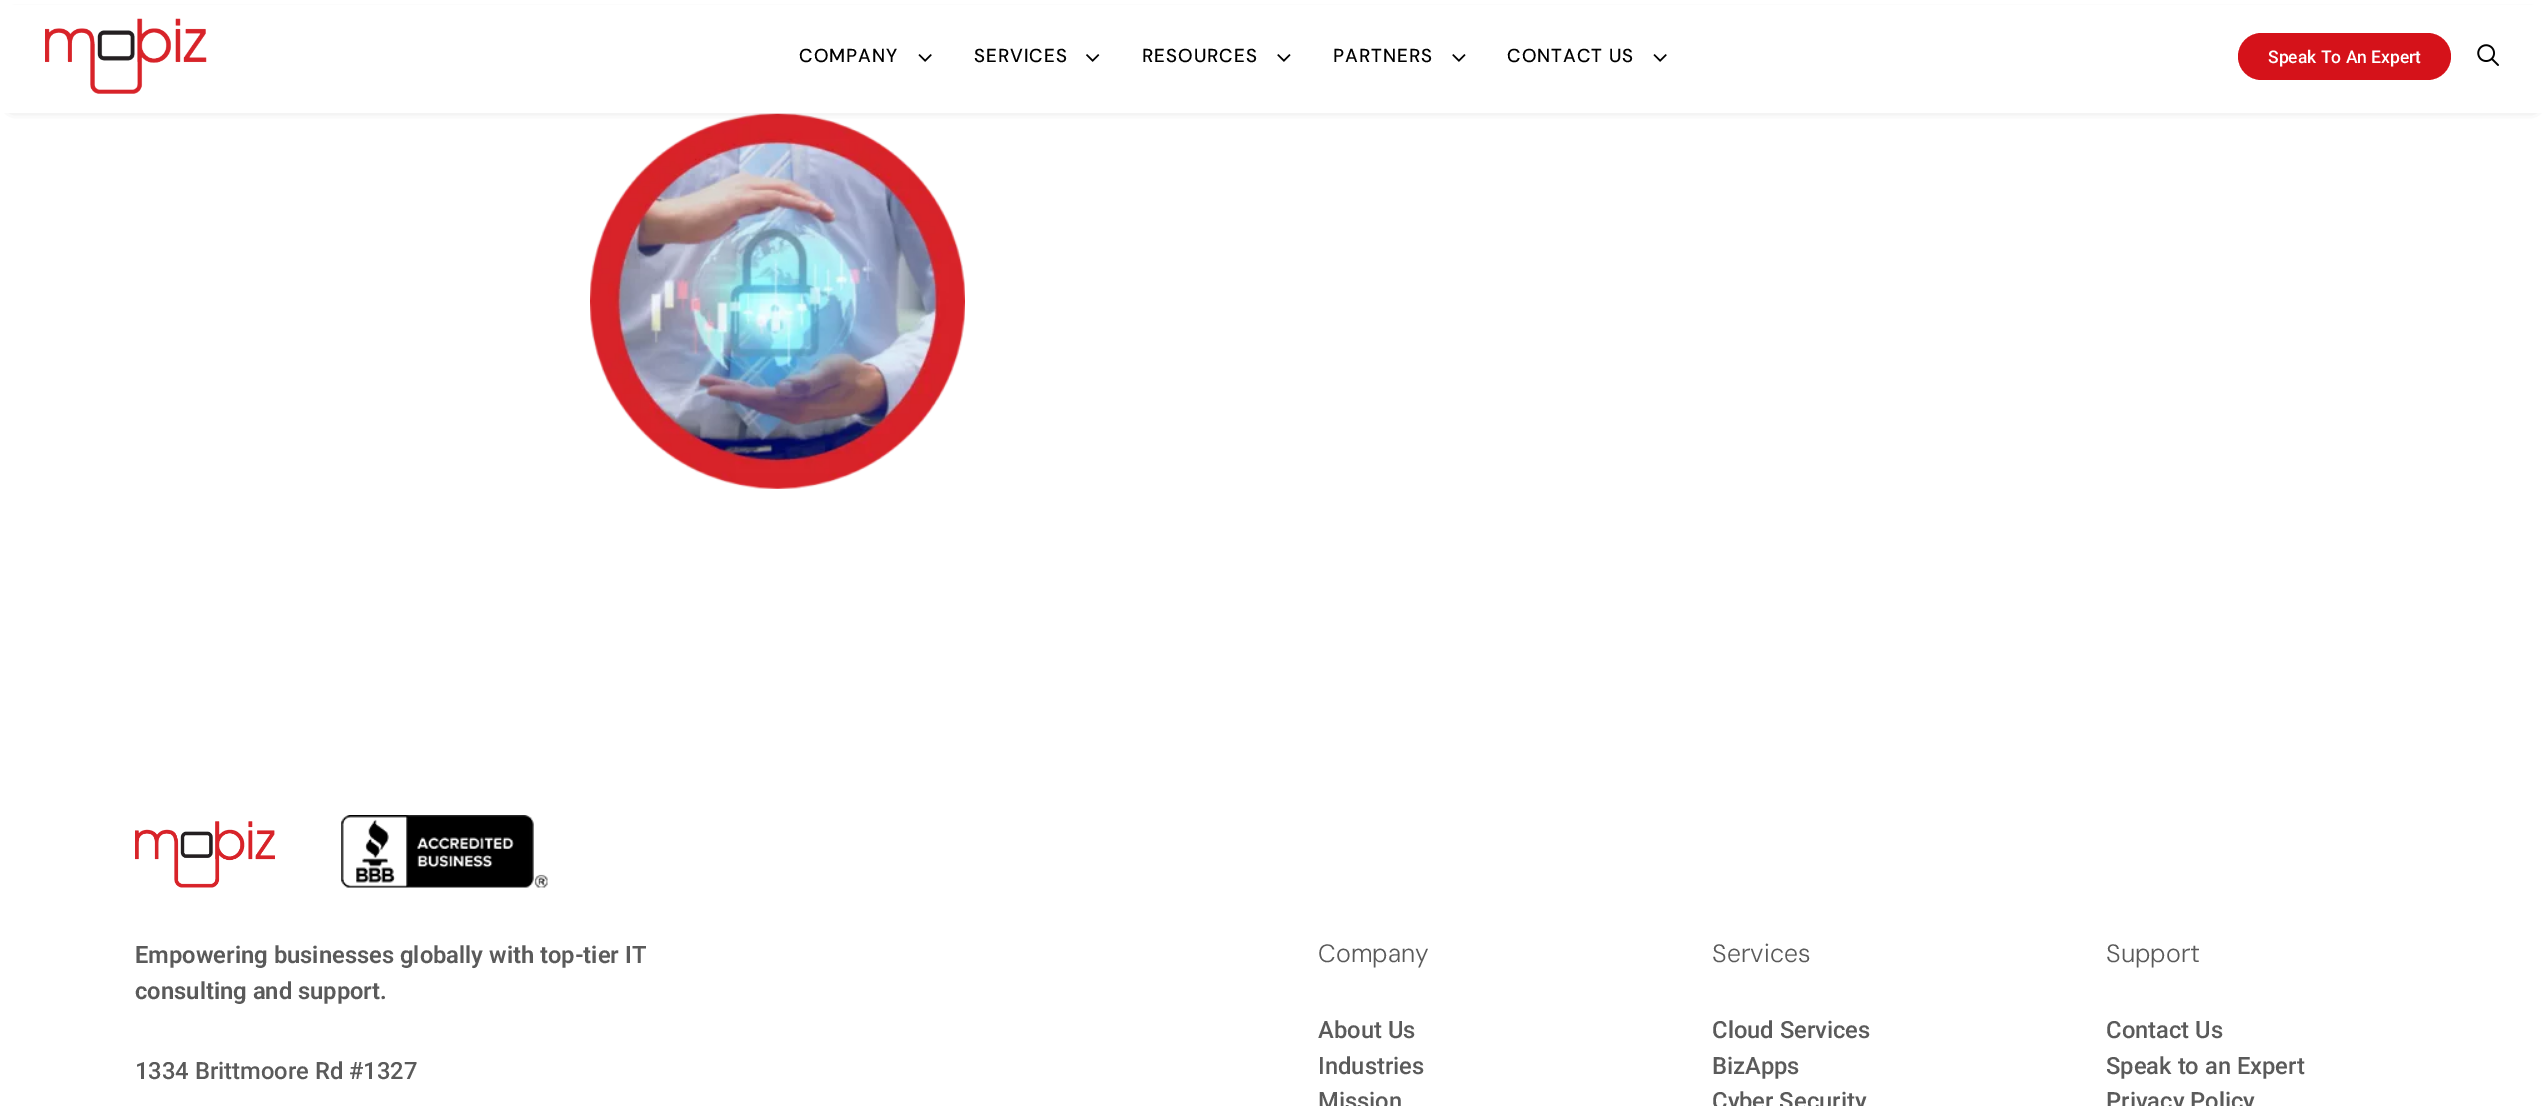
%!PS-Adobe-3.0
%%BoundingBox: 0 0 2544 1106
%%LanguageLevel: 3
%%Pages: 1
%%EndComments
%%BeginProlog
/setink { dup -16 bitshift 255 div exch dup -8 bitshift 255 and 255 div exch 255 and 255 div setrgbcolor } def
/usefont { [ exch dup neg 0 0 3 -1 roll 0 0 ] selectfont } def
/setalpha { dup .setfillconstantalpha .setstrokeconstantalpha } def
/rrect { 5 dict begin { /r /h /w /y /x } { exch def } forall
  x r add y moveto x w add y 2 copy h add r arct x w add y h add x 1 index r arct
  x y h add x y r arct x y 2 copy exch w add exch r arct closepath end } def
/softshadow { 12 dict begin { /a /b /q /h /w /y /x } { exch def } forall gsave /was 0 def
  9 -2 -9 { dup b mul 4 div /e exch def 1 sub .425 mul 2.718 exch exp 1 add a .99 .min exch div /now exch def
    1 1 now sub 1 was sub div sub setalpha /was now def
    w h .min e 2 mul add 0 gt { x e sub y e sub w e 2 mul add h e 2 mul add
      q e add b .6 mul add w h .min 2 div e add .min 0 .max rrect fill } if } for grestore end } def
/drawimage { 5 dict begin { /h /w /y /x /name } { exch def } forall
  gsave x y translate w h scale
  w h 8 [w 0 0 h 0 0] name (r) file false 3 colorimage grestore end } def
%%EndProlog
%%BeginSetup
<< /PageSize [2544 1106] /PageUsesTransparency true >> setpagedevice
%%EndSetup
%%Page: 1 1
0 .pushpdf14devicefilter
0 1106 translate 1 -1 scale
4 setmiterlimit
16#FFFFFF setink
0 0 2544 1106 rectfill
(img6.raw) 590 113 375 376 drawimage
16#000000 setink
13 18 2520 87 0 6 0.6 softshadow
16#FFFFFF setink
0 5 2544 108 rectfill
(img1.raw) 45 18 162 76 drawimage
/DMSans-Medium 18.75 usefont
16#000000 setink
799 62 moveto 1 0 (COMPANY) ashow
(img2.raw) 918 54 14 8 drawimage
974 62 moveto 1 0 (SERVICES) ashow
(img3.raw) 1086 54 14 8 drawimage
1142 62 moveto 1 0 (RESOURCES) ashow
(img4.raw) 1277 54 14 8 drawimage
1333 62 moveto 1 0 (PARTNERS) ashow
(img4.raw) 1452 54 14 8 drawimage
1507 62 moveto 1 0 (CONTACT US) ashow
(img2.raw) 1653 54 14 8 drawimage
16#D5121A setink
2238 33 213 47 23.5 rrect fill
/Roboto-Medium 17.5 usefont
16#FFFFFF setink
2268 63 moveto (Speak To An Expert) show
(img5.raw) 2477 44 22 22 drawimage
(img7.raw) 135 821 140 67 drawimage
(img8.raw) 341 815 207 73 drawimage
/Roboto-SemiBold 23.75 usefont
16#5A5A5A setink
135 963 moveto (Empowering businesses globally with top-tier IT) show
135 999 moveto (consulting and support.) show
/Roboto-Medium 23.75 usefont
135 1079 moveto (1334 Brittmoore Rd #1327) show
/DMSans-Light 25 usefont
1318 962 moveto (Company) show
/Roboto-Medium 23.75 usefont
[
    [(About Us) 1318 1038]
    [(Industries) 1318 1074]
    [(Mission) 1318 1109]
] { aload pop moveto show } forall
/DMSans-Light 25 usefont
1712 962 moveto (Services) show
/Roboto-Medium 23.75 usefont
[
    [(Cloud Services) 1712 1038]
    [(BizApps) 1712 1074]
    [(Cyber Security) 1712 1109]
] { aload pop moveto show } forall
/DMSans-Light 25 usefont
2106 962 moveto (Support) show
/Roboto-Medium 23.75 usefont
[
    [(Contact Us) 2106 1038]
    [(Speak to an Expert) 2106 1074]
    [(Privacy Policy) 2106 1109]
] { aload pop moveto show } forall
.poppdf14devicefilter showpage
%%EOF
